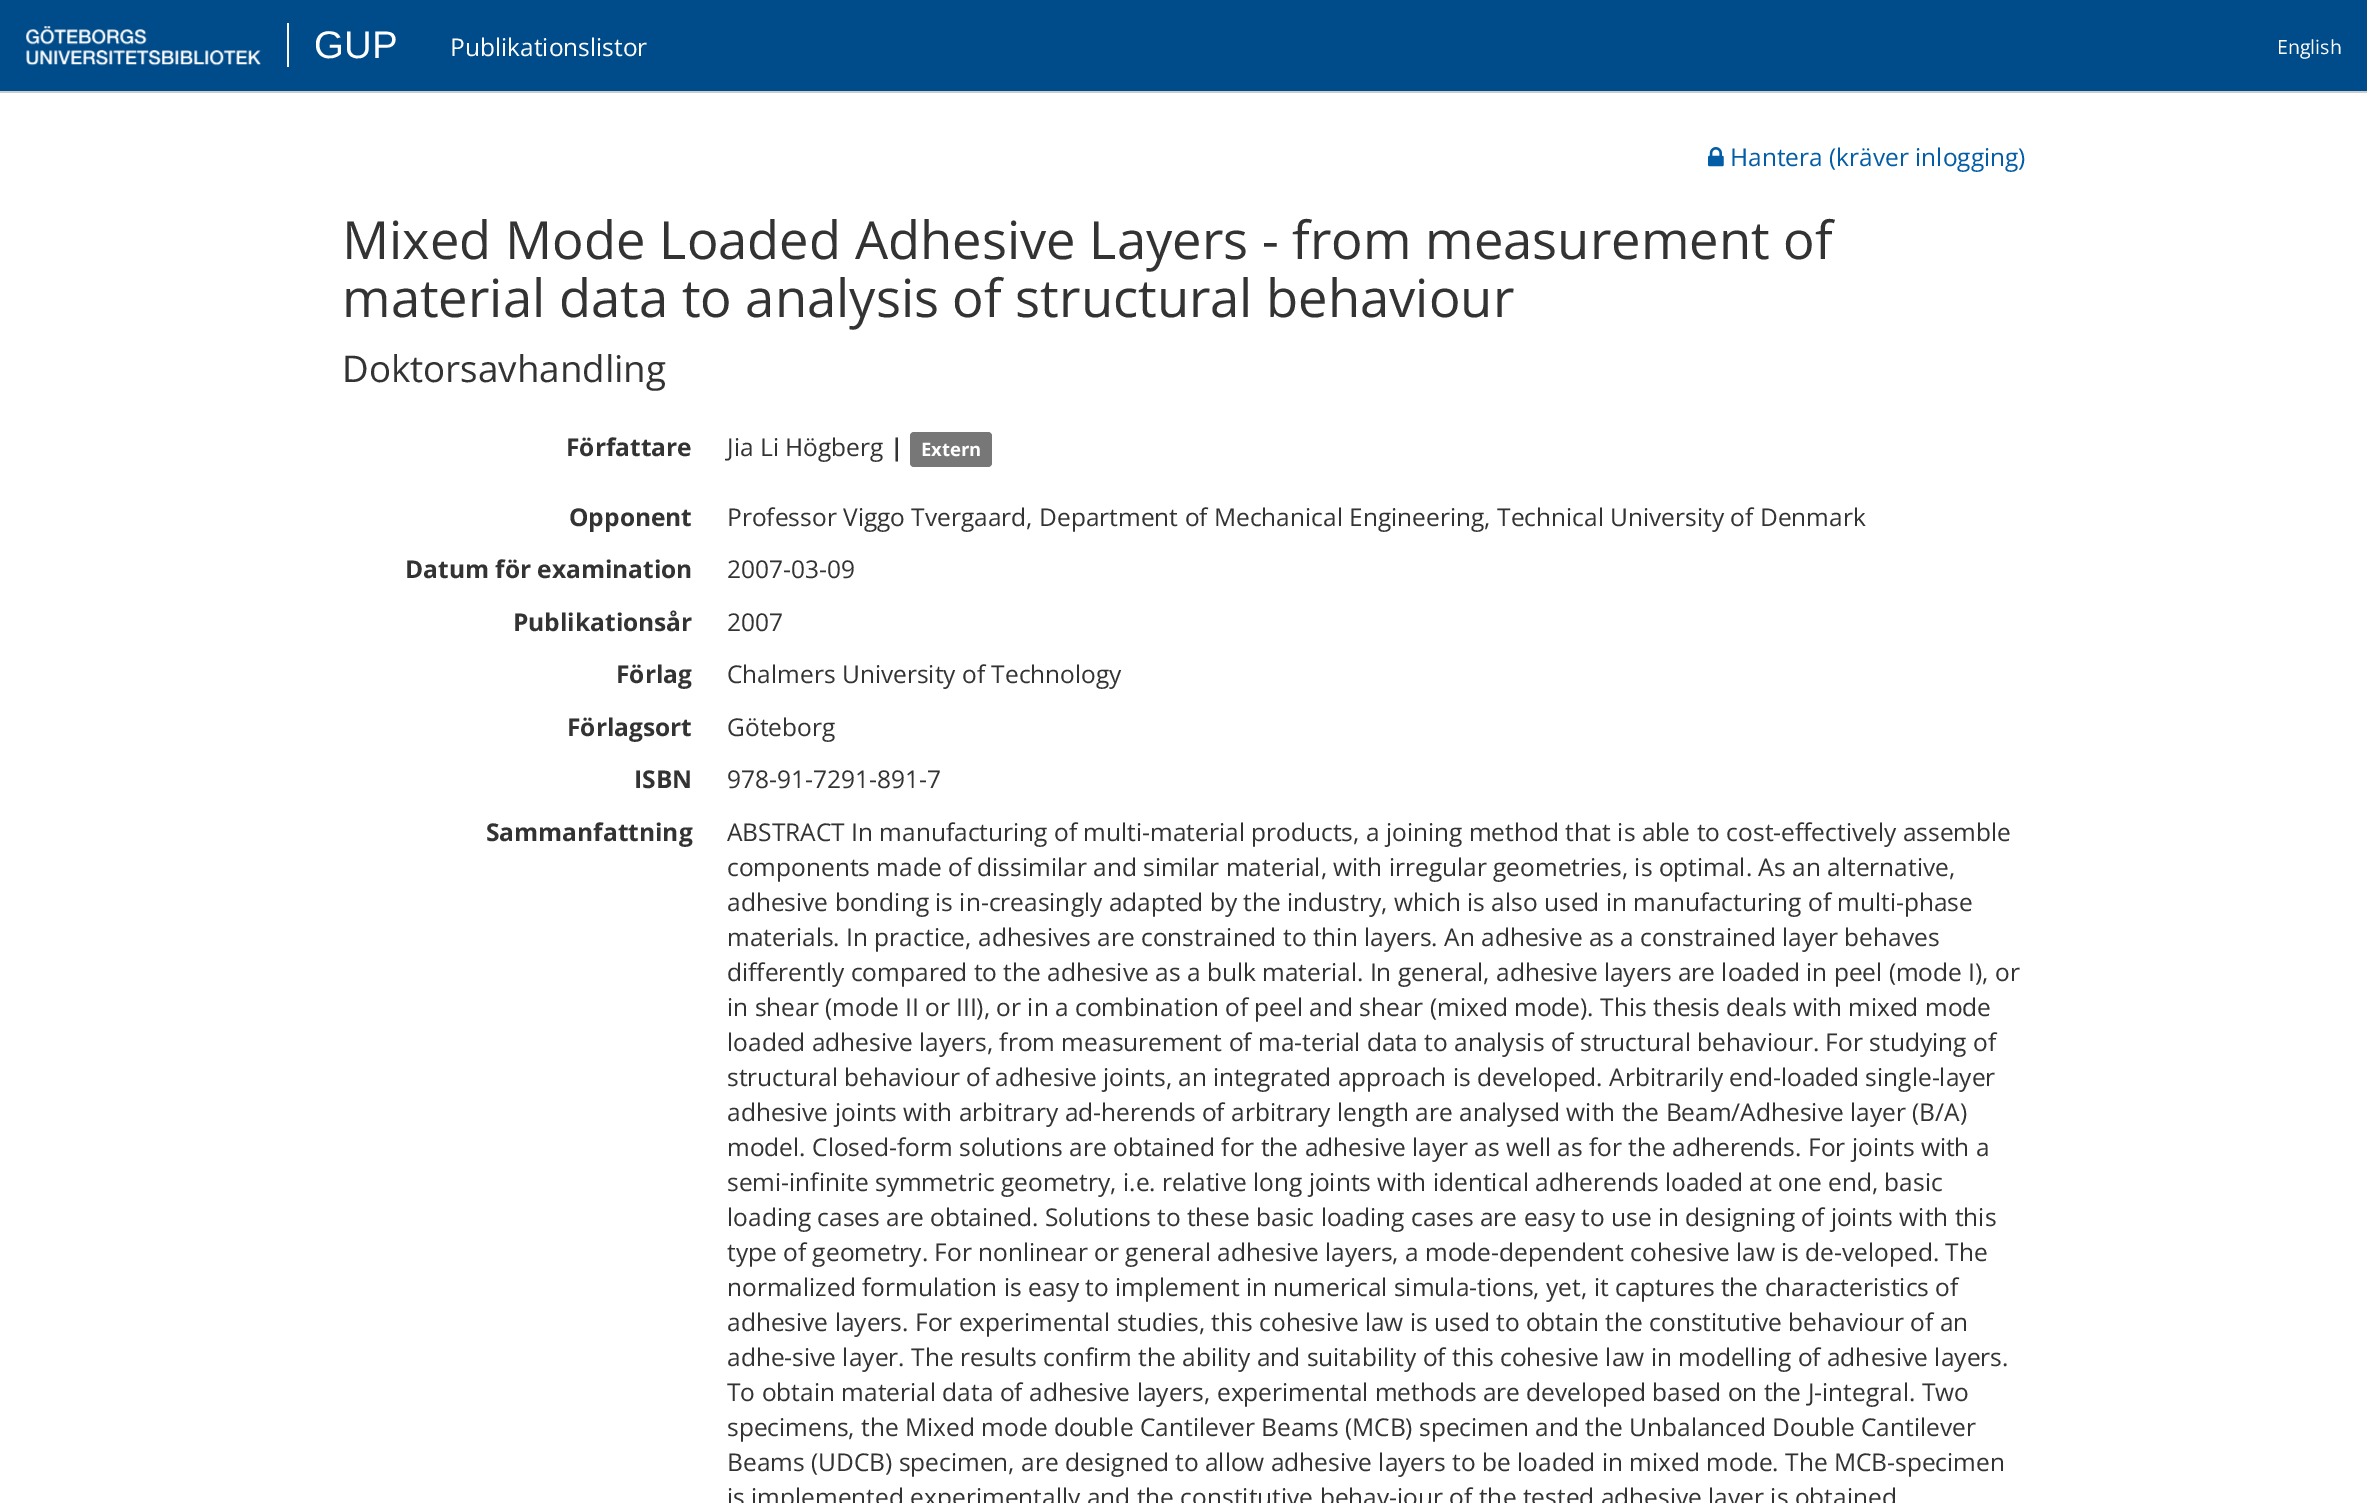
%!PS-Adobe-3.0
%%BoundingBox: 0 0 2367 1503
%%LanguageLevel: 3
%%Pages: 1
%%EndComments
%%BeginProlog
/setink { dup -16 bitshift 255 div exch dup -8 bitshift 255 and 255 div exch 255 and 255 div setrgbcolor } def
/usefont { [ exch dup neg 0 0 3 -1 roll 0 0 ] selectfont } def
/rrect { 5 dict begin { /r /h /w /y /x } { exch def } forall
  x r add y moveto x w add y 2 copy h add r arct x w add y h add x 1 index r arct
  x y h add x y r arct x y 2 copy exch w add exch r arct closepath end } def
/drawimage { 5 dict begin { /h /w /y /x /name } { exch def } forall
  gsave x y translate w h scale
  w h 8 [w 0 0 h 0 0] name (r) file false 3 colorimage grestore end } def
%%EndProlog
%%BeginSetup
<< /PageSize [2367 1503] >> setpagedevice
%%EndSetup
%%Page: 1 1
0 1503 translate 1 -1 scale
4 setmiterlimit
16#FFFFFF setink
0 0 2367 1503 rectfill
16#004B89 setink
0 0 2367 91 rectfill
16#CCCCCC setink
0 91 2367 2 rectfill
(img1.raw) 26 26 235 40 drawimage
16#FFFFFF setink
287 23 2 44 rectfill
/LiberationSans-Regular 38.5 usefont
314 58 moveto (GUP) show
/OpenSans-Regular 24.5 usefont
450 56 moveto (Publikationslistor) show
/OpenSans-Regular 19.5 usefont
2277 54 moveto (English) show
(img2.raw) 1708 147 16 20 drawimage
/OpenSans-Regular 24.5 usefont
16#025DA6 setink
1730 166 moveto (Hantera \(kräver inlogging\)) show
/OpenSans-Regular 52.5 usefont
16#333333 setink
342 259 moveto (Mixed Mode Loaded Adhesive Layers - from measurement of) show
342 317 moveto (material data to analysis of structural behaviour) show
/OpenSans-Regular 36.75 usefont
342 382 moveto (Doktorsavhandling) show
/OpenSans-Bold 24.5 usefont
566 456 moveto (Författare) show
/OpenSans-Regular 24.5 usefont
727 456 moveto (Jia Li Högberg) show
/OpenSans-Bold 24.5 usefont
890 456 moveto (|) show
16#777777 setink
910 432 82 35 4 rrect fill
/OpenSans-Bold 18.5 usefont
16#FFFFFF setink
921 456 moveto (Extern) show
/OpenSans-Bold 24.5 usefont
16#333333 setink
569 526 moveto (Opponent) show
/OpenSans-Regular 24.5 usefont
727 526 moveto (Professor Viggo Tvergaard, Department of Mechanical Engineering, Technical University of Denmark) show
/OpenSans-Bold 24.5 usefont
405 578 moveto (Datum för examination) show
/OpenSans-Regular 24.5 usefont
727 578 moveto (2007-03-09) show
/OpenSans-Bold 24.5 usefont
513 631 moveto (Publikationsår) show
/OpenSans-Regular 24.5 usefont
727 631 moveto (2007) show
/OpenSans-Bold 24.5 usefont
616 683 moveto (Förlag) show
/OpenSans-Regular 24.5 usefont
727 683 moveto (Chalmers University of Technology) show
/OpenSans-Bold 24.5 usefont
567 736 moveto (Förlagsort) show
/OpenSans-Regular 24.5 usefont
727 736 moveto (Göteborg) show
/OpenSans-Bold 24.5 usefont
634 788 moveto (ISBN) show
/OpenSans-Regular 24.5 usefont
727 788 moveto (978-91-7291-891-7) show
/OpenSans-Bold 24.5 usefont
486 841 moveto (Sammanfattning) show
/OpenSans-Regular 24.5 usefont
[
    [(ABSTRACT In manufacturing of multi-material products, a joining method that is able to cost-effectively assemble) 727 841]
    [(components made of dissimilar and similar material, with irregular geometries, is optimal. As an alternative,) 727 876]
    [(adhesive bonding is in-creasingly adapted by the industry, which is also used in manufacturing of multi-phase) 727 911]
    [(materials. In practice, adhesives are constrained to thin layers. An adhesive as a constrained layer behaves) 727 946]
    [(differently compared to the adhesive as a bulk material. In general, adhesive layers are loaded in peel \(mode I\), or) 727 981]
    [(in shear \(mode II or III\), or in a combination of peel and shear \(mixed mode\). This thesis deals with mixed mode) 727 1016]
    [(loaded adhesive layers, from measurement of ma-terial data to analysis of structural behaviour. For studying of) 727 1051]
    [(structural behaviour of adhesive joints, an integrated approach is developed. Arbitrarily end-loaded single-layer) 727 1086]
    [(adhesive joints with arbitrary ad-herends of arbitrary length are analysed with the Beam/Adhesive layer \(B/A\)) 727 1121]
    [(model. Closed-form solutions are obtained for the adhesive layer as well as for the adherends. For joints with a) 727 1156]
    [(semi-infinite symmetric geometry, i.e. relative long joints with identical adherends loaded at one end, basic) 727 1191]
    [(loading cases are obtained. Solutions to these basic loading cases are easy to use in designing of joints with this) 727 1226]
    [(type of geometry. For nonlinear or general adhesive layers, a mode-dependent cohesive law is de-veloped. The) 727 1261]
    [(normalized formulation is easy to implement in numerical simula-tions, yet, it captures the characteristics of) 727 1296]
    [(adhesive layers. For experimental studies, this cohesive law is used to obtain the constitutive behaviour of an) 727 1331]
    [(adhe-sive layer. The results confirm the ability and suitability of this cohesive law in modelling of adhesive layers.) 727 1366]
    [(To obtain material data of adhesive layers, experimental methods are developed based on the J-integral. Two) 727 1401]
    [(specimens, the Mixed mode double Cantilever Beams \(MCB\) specimen and the Unbalanced Double Cantilever) 727 1436]
    [(Beams \(UDCB\) specimen, are designed to allow adhesive layers to be loaded in mixed mode. The MCB-specimen) 727 1471]
    [(is implemented experimentally and the constitutive behav-iour of the tested adhesive layer is obtained) 727 1506]
] { aload pop moveto show } forall
showpage
%%EOF
